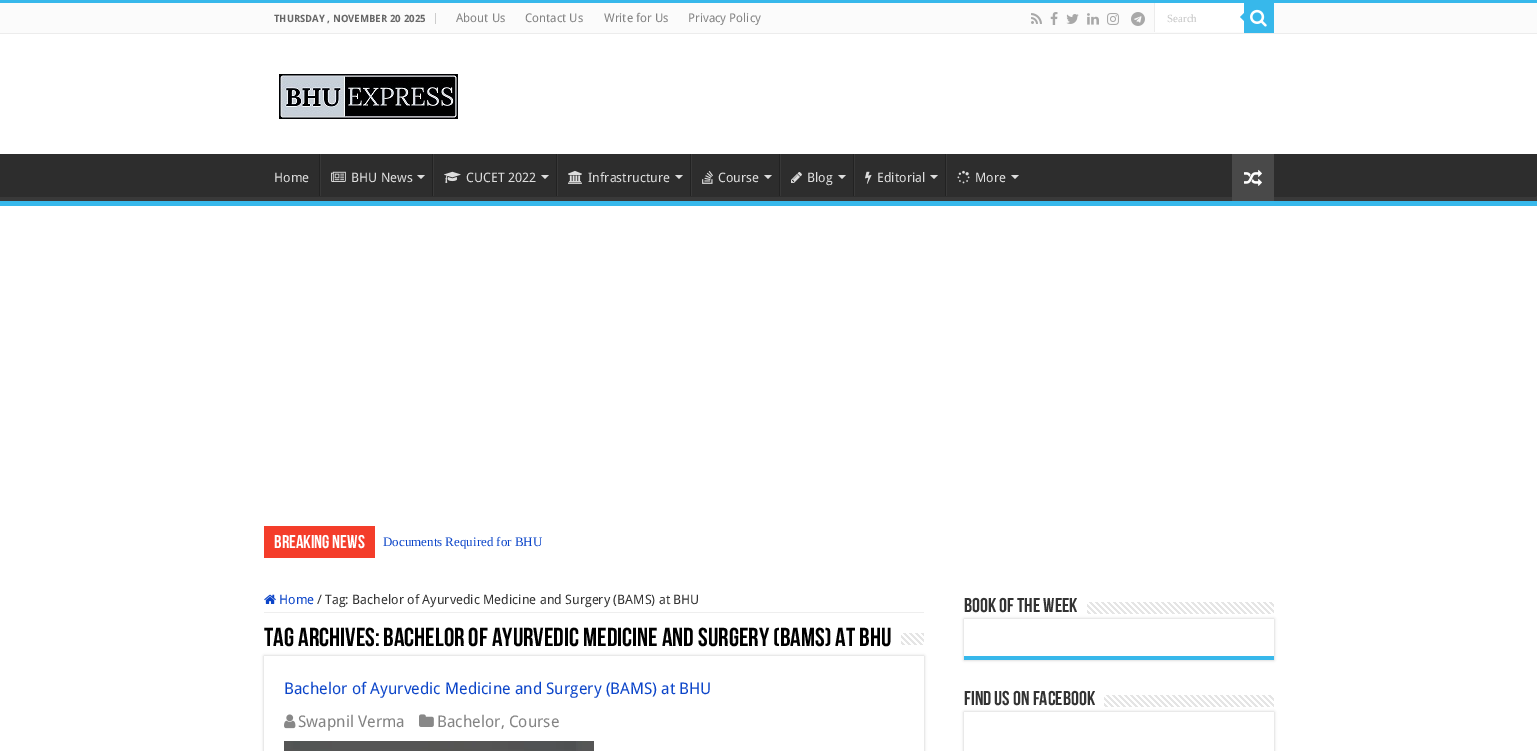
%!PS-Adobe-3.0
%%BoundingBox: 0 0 1537 751
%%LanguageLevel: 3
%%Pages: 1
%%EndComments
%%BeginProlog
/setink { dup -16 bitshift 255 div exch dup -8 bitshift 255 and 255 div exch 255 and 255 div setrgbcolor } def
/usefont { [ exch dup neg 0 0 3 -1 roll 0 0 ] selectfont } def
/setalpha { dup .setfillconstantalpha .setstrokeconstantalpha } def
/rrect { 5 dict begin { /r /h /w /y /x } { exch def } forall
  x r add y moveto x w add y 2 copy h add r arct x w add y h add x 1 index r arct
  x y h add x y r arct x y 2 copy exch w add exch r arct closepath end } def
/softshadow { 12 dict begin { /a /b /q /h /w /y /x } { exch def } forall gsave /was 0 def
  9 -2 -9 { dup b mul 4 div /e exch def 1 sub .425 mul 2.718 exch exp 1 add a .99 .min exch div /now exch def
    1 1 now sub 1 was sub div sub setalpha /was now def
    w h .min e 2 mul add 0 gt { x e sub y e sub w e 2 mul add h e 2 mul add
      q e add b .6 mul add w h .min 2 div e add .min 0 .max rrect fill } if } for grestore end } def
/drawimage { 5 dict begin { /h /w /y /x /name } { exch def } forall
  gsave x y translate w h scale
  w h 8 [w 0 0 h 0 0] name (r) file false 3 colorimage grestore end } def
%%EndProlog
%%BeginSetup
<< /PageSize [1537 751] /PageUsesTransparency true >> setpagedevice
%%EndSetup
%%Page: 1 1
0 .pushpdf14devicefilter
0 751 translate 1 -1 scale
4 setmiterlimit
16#FFFFFF setink
0 0 1537 751 rectfill
[
    [0 0 1537 3 16#37B8EB]
    [0 3 1537 30 16#FBFBFB]
    [0 33 1537 1 16#ECECEC]
    [435 13 1 11 16#CCCCCC]
] { aload pop setink rectfill } forall
/DroidSans-Bold 10 usefont
16#666666 setink
274 22 moveto (THURSDAY , NOVEMBER 20 2025) show
/DroidSans-Regular 12 usefont
16#838383 setink
[
    [(About Us) 456 22]
    [(Contact Us) 525 22]
    [(Write for Us) 604 22]
    [(Privacy Policy) 688 22]
] { aload pop moveto show } forall
(img1.raw) 1031 13 11 11 drawimage
(img2.raw) 1050 12 8 13 drawimage
(img3.raw) 1066 14 13 10 drawimage
(img4.raw) 1087 13 12 12 drawimage
(img5.raw) 1107 13 12 12 drawimage
(img6.raw) 1131 12 14 14 drawimage
16#FFFFFF setink
1155 3 89 29 rectfill
16#ECECEC setink
1154 3 1 29 rectfill
/LiberationSerif-Regular 11 usefont
16#C5C5C5 setink
1167 22 moveto (Search) show
16#37B8EB setink
1244 3 30 30 rectfill
(img7.raw) 1250 9 17 18 drawimage
1244 13 moveto 1244 21 lineto 1240 17 lineto closepath fill
(img8.raw) 279 74 179 45 drawimage
16#2D2D2D setink
0 154 1537 43 rectfill
gsave
0 154 1537 47 rectclip
16#393939 setink
-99 55 moveto 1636 55 lineto 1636 300 lineto -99 300 lineto closepath -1 148 moveto 1536 148 lineto 1537 148 lineto 1537 196 lineto 1536 197 lineto -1 197 lineto -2 196 lineto -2 148 lineto closepath eofill
grestore
16#37B8EB setink
0 201 1537 5 rectfill
/DroidSans-Regular 13 usefont
16#DDDDDD setink
274 182 moveto (Home) show
16#222222 setink
319 154 1 42 rectfill
16#383838 setink
320 154 1 42 rectfill
(img9.raw) 331 171 15 11 drawimage
16#DDDDDD setink
351 182 moveto (BHU News) show
417 175 moveto 425 175 lineto 421 179 lineto closepath fill
16#222222 setink
432 154 1 42 rectfill
16#383838 setink
433 154 1 42 rectfill
(img10.raw) 444 171 17 12 drawimage
16#DDDDDD setink
466 182 moveto (CUCET 2022) show
541 175 moveto 549 175 lineto 545 179 lineto closepath fill
16#222222 setink
556 154 1 42 rectfill
16#383838 setink
557 154 1 42 rectfill
(img11.raw) 568 170 14 14 drawimage
16#DDDDDD setink
588 182 moveto (Infrastructure) show
675 175 moveto 683 175 lineto 679 179 lineto closepath fill
16#222222 setink
690 154 1 42 rectfill
16#383838 setink
691 154 1 42 rectfill
(img12.raw) 702 171 11 13 drawimage
16#DDDDDD setink
718 182 moveto (Course) show
764 175 moveto 772 175 lineto 768 179 lineto closepath fill
16#222222 setink
779 154 1 42 rectfill
16#383838 setink
780 154 1 42 rectfill
(img13.raw) 791 172 11 11 drawimage
16#DDDDDD setink
807 182 moveto (Blog) show
838 175 moveto 846 175 lineto 842 179 lineto closepath fill
16#222222 setink
853 154 1 42 rectfill
16#383838 setink
854 154 1 42 rectfill
(img14.raw) 865 171 7 13 drawimage
16#DDDDDD setink
877 182 moveto (Editorial) show
930 175 moveto 938 175 lineto 934 179 lineto closepath fill
16#222222 setink
945 154 1 42 rectfill
16#383838 setink
946 154 1 42 rectfill
(img15.raw) 957 170 13 14 drawimage
16#DDDDDD setink
975 182 moveto (More) show
1011 175 moveto 1019 175 lineto 1015 179 lineto closepath fill
16#494949 setink
1232 154 42 47 rectfill
(img16.raw) 1244 169 18 17 drawimage
16#F43D2A setink
264 526 111 32 rectfill
/BebasNeue-Bold 18.5 usefont
16#FFFFFF setink
274 548 moveto (Breaking News) show
/LiberationSerif-Regular 13 usefont
16#0C45C9 setink
383 546 moveto (Documents Required for BHU) show
16#EEEEEE setink
264 612 660 1 rectfill
(img17.raw) 264 594 12 10 drawimage
/DroidSans-Regular 13 usefont
16#0C45C9 setink
279 604 moveto (Home) show
16#333333 setink
317 604 moveto (/) show
325 604 moveto (Tag: Bachelor of Ayurvedic Medicine and Surgery \(BAMS\) at BHU) show
gsave
264 623 660 33 rectclip
/BebasNeue-Bold 26 usefont
16#000000 setink
264 646 moveto (Tag Archives:) show
grestore
/BebasNeue-Bold 26 usefont
16#000000 setink
383 646 moveto (Bachelor of Ayurvedic Medicine and Surgery \(BAMS\) at BHU) show
(img18.raw) 901 633 23 12 drawimage
gsave
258 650 moveto 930 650 lineto 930 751 lineto 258 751 lineto closepath 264 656 moveto 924 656 lineto 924 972 lineto 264 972 lineto closepath eoclip newpath
16#CACACA setink
264 656 660 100 0 1.5 1 softshadow
grestore
/DroidSans-Regular 16 usefont
16#0C45C9 setink
284 694 moveto (Bachelor of Ayurvedic Medicine and Surgery \(BAMS\) at BHU) show
(img19.raw) 284 714 12 15 drawimage
16#838383 setink
298 727 moveto (Swapnil Verma) show
(img20.raw) 419 714 15 13 drawimage
437 727 moveto (Bachelor, Course) show
(img21.raw) 284 741 310 10 drawimage
/BebasNeue-Bold 20 usefont
16#333333 setink
964 612 moveto (Book of the week) show
gsave
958 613 moveto 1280 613 lineto 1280 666 lineto 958 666 lineto closepath 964 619 moveto 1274 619 lineto 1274 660 lineto 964 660 lineto closepath eoclip newpath
16#CACACA setink
964 619 310 41 0 1.5 1 softshadow
grestore
(img22.raw) 1087 602 187 12 drawimage
16#37B8EB setink
964 656 310 4 rectfill
16#333333 setink
964 705 moveto (Find us on Facebook) show
gsave
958 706 moveto 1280 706 lineto 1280 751 lineto 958 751 lineto closepath 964 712 moveto 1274 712 lineto 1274 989 lineto 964 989 lineto closepath eoclip newpath
16#CACACA setink
964 712 310 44 0 1.5 1 softshadow
grestore
(img23.raw) 1104 695 170 12 drawimage
.poppdf14devicefilter showpage
%%EOF
